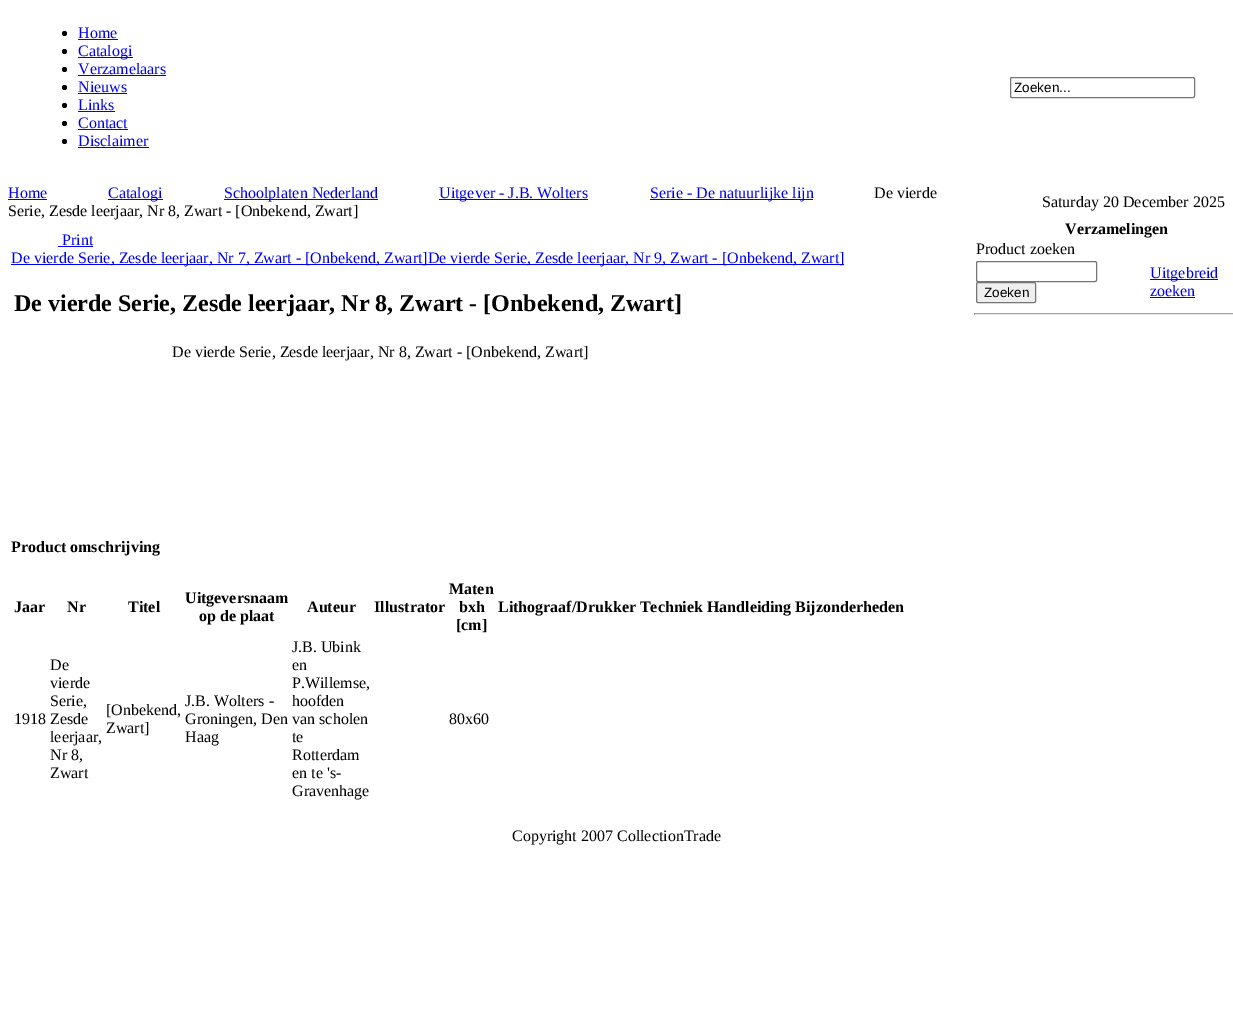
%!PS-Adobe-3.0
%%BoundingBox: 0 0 1233 1027
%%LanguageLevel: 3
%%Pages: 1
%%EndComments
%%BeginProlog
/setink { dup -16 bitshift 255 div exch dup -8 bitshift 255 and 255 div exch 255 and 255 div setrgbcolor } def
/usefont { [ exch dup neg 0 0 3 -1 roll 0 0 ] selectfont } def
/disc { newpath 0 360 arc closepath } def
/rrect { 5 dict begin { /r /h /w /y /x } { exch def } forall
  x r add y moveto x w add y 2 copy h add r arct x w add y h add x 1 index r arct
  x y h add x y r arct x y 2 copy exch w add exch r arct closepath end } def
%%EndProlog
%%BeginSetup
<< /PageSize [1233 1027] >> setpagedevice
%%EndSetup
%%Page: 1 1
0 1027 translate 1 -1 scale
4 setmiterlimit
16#FFFFFF setink
0 0 1233 1027 rectfill
16#000000 setink
64.5 33.5 2.5 disc fill
/LiberationSerif-Regular 16 usefont
16#0000EE setink
78 38 moveto (Home) show
78 39 40 1 rectfill
16#000000 setink
64.5 51.5 2.5 disc fill
16#0000EE setink
78 57 55 1 rectfill
78 56 moveto (Catalogi) show
16#000000 setink
64.5 69.5 2.5 disc fill
16#0000EE setink
78 74 moveto (Verzamelaars) show
78 75 88 1 rectfill
16#000000 setink
64.5 87.5 2.5 disc fill
16#0000EE setink
78 92 moveto (Nieuws) show
78 93 49 1 rectfill
16#000000 setink
64.5 105.5 2.5 disc fill
16#0000EE setink
78 110 moveto (Links) show
78 111 37 1 rectfill
16#000000 setink
64.5 123.5 2.5 disc fill
16#0000EE setink
78 128 moveto (Contact) show
78 129 50 1 rectfill
16#000000 setink
64.5 141.5 2.5 disc fill
16#0000EE setink
78 146 moveto (Disclaimer) show
78 147 71 1 rectfill
16#767676 setink
1010.5 77.5 184 20 1.5 rrect stroke
/LiberationSans-Regular 13.5 usefont
16#000000 setink
1014 92 moveto (Zoeken...) show
/LiberationSerif-Regular 16 usefont
16#0000EE setink
8 198 moveto (Home) show
8 199 39 1 rectfill
108 199 55 1 rectfill
108 198 moveto (Catalogi) show
224 199 154 1 rectfill
224 198 moveto (Schoolplaten Nederland) show
439 199 149 1 rectfill
439 198 moveto (Uitgever - J.B. Wolters) show
650 199 163 1 rectfill
650 198 moveto (Serie - De natuurlijke lijn) show
16#000000 setink
[
    [(De vierde) 874 198]
    [(Serie, Zesde leerjaar, Nr 8, Zwart - [Onbekend, Zwart]) 8 216]
    [(Saturday 20 December 2025) 1042 207]
] { aload pop moveto show } forall
16#0000EE setink
62 245 moveto (Print) show
58 246 35 1 rectfill
11 264 833 1 rectfill
11 263 moveto (De vierde Serie, Zesde leerjaar, Nr 7, Zwart - [Onbekend, Zwart]De vierde Serie, Zesde leerjaar, Nr 9, Zwart - [Onbekend, Zwart]) show
/LiberationSerif-Bold 24 usefont
16#000000 setink
14 311 moveto (De vierde Serie, Zesde leerjaar, Nr 8, Zwart - [Onbekend, Zwart]) show
/LiberationSerif-Regular 16 usefont
172 357 moveto (De vierde Serie, Zesde leerjaar, Nr 8, Zwart - [Onbekend, Zwart]) show
/LiberationSerif-Bold 16 usefont
[
    [(Product omschrijving) 11 552]
    [(Jaar) 14 612]
    [(Nr) 67 612]
    [(Titel) 128 612]
    [(Uitgeversnaam) 185 603]
    [(op de plaat) 199 621]
    [(Auteur) 307 612]
    [(Illustrator) 374 612]
    [(Maten) 449 594]
    [(bxh) 459 612]
    [([cm]) 456 630]
    [(Lithograaf/Drukker Techniek Handleiding Bijzonderheden) 498 612]
] { aload pop moveto show } forall
/LiberationSerif-Regular 16 usefont
[
    [(De) 50 670]
    [(vierde) 50 688]
    [(Serie,) 50 706]
    [(leerjaar,) 50 742]
    [(Nr 8,) 50 760]
    [(Zwart) 50 778]
    [(J.B. Ubink) 292 652]
    [(en) 292 670]
    [(P.Willemse,) 292 688]
    [(hoofden) 292 706]
    [(te) 292 742]
    [(Rotterdam) 292 760]
    [(en te 's-) 292 778]
    [(Gravenhage) 292 796]
    [(1918 Zesde) 14 724]
    [([Onbekend,) 106 715]
    [(Zwart]) 106 733]
    [(J.B. Wolters -) 185 706]
    [(Groningen, Den van scholen) 185 724]
    [(Haag) 185 742]
    [(80x60) 449 724]
] { aload pop moveto show } forall
/LiberationSerif-Bold 16 usefont
1065 234 moveto (Verzamelingen) show
/LiberationSerif-Regular 16 usefont
976 254 moveto (Product zoeken) show
16#767676 setink
976.5 261.5 120 20 1.5 rrect stroke
16#EFEFEF setink
976.5 282.5 59 20 1.5 rrect gsave fill grestore
16#767676 setink
stroke
/LiberationSans-Regular 13.5 usefont
16#000000 setink
984 297 moveto (Zoeken) show
16#0000EE setink
1150 279 68 1 rectfill
/LiberationSerif-Regular 16 usefont
1150 278 moveto (Uitgebreid) show
1150 296 moveto (zoeken) show
[
    [1150 297 45 1 16#0000EE]
    [974 313 259 1 16#9F9F9F]
    [974 314 259 1 16#EEEEEE]
    [974 313 1 2 16#9F9F9F]
] { aload pop setink rectfill } forall
16#000000 setink
512 841 moveto (Copyright 2007 CollectionTrade) show
showpage
%%EOF
